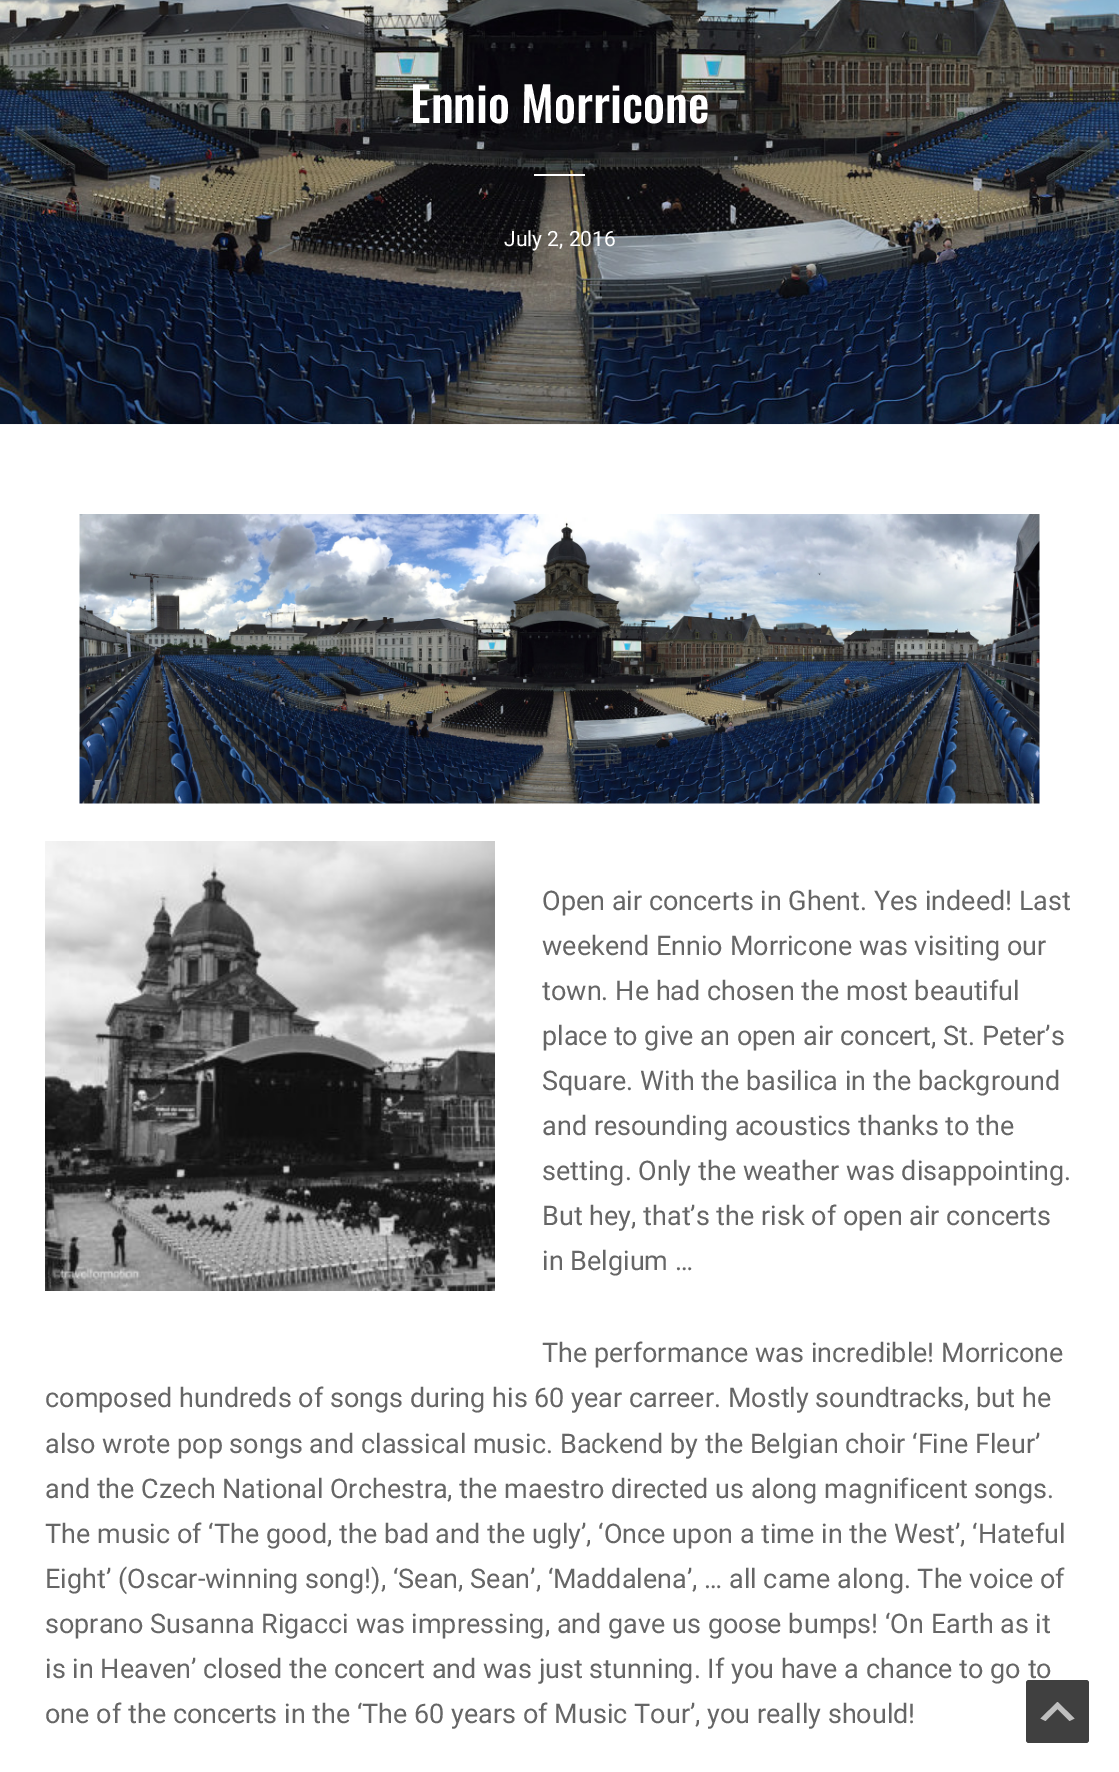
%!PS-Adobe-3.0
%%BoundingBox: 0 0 1119 1772
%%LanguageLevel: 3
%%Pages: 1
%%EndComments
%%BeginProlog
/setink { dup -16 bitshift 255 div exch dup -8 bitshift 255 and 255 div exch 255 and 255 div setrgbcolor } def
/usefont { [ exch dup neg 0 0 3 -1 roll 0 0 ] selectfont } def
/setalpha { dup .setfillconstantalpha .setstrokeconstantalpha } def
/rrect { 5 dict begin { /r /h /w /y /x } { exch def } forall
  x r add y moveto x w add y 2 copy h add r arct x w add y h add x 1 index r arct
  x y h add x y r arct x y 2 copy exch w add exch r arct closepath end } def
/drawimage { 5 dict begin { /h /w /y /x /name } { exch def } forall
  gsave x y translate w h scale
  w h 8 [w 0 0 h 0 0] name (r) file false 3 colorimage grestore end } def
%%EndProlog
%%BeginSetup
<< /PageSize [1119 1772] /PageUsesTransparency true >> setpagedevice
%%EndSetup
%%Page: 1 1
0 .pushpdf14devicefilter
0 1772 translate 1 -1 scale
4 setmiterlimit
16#FFFFFF setink
0 0 1119 1772 rectfill
16#F7F7F7 setink
0 424 1119 1 rectfill
(img1.raw) 0 0 1119 424 drawimage
/Oswald-Medium 48 usefont
16#FFFFFF setink
410 123 moveto (Ennio Morricone) show
534 174 51 2 rectfill
/Roboto-Regular 21 usefont
504 246 moveto (July 2, 2016) show
(img2.raw) 79 514 961 290 drawimage
(img3.raw) 45 841 450 450 drawimage
/Roboto-Regular 27 usefont
16#666666 setink
[
    [(Open air concerts in Ghent. Yes indeed! Last) 542 910]
    [(weekend Ennio Morricone was visiting our) 542 955]
    [(town. He had chosen the most beautiful) 542 1000]
    [(place to give an open air concert, St. Peter’s) 542 1045]
    [(Square. With the basilica in the background) 542 1090]
    [(and resounding acoustics thanks to the) 542 1135]
    [(setting. Only the weather was disappointing.) 542 1180]
    [(But hey, that’s the risk of open air concerts) 542 1225]
    [(in Belgium …) 542 1270]
    [(The performance was incredible! Morricone) 542 1362]
    [(composed hundreds of songs during his 60 year carreer. Mostly soundtracks, but he) 45 1407]
    [(also wrote pop songs and classical music. Backend by the Belgian choir ‘Fine Fleur’) 45 1453]
    [(and the Czech National Orchestra, the maestro directed us along magnificent songs.) 45 1498]
    [(The music of ‘The good, the bad and the ugly’, ‘Once upon a time in the West’, ‘Hateful) 45 1543]
    [(Eight’ \(Oscar-winning song!\), ‘Sean, Sean’, ‘Maddalena’, … all came along. The voice of) 45 1588]
    [(soprano Susanna Rigacci was impressing, and gave us goose bumps! ‘On Earth as it) 45 1633]
    [(is in Heaven’ closed the concert and was just stunning. If you have a chance to go to) 45 1678]
    [(one of the concerts in the ‘The 60 years of Music Tour’, you really should!) 45 1723]
] { aload pop moveto show } forall
16#808080 setink
1026 1680 63 63 3 rrect fill
16#FFFFFF setink
1069.5 1721 moveto 1057.5 1709 lineto 1045.5 1721 lineto 1040.5 1718.5 lineto 1057.5 1702 lineto 1074.5 1718.5 lineto closepath fill
0.5 setalpha
16#000000 setink
1026 1680 63 63 3 rrect fill
16#FFFFFF setink
1069.5 1721 moveto 1057.5 1709 lineto 1045.5 1721 lineto 1040.5 1718.5 lineto 1057.5 1702 lineto 1074.5 1718.5 lineto closepath fill
.poppdf14devicefilter showpage
%%EOF
